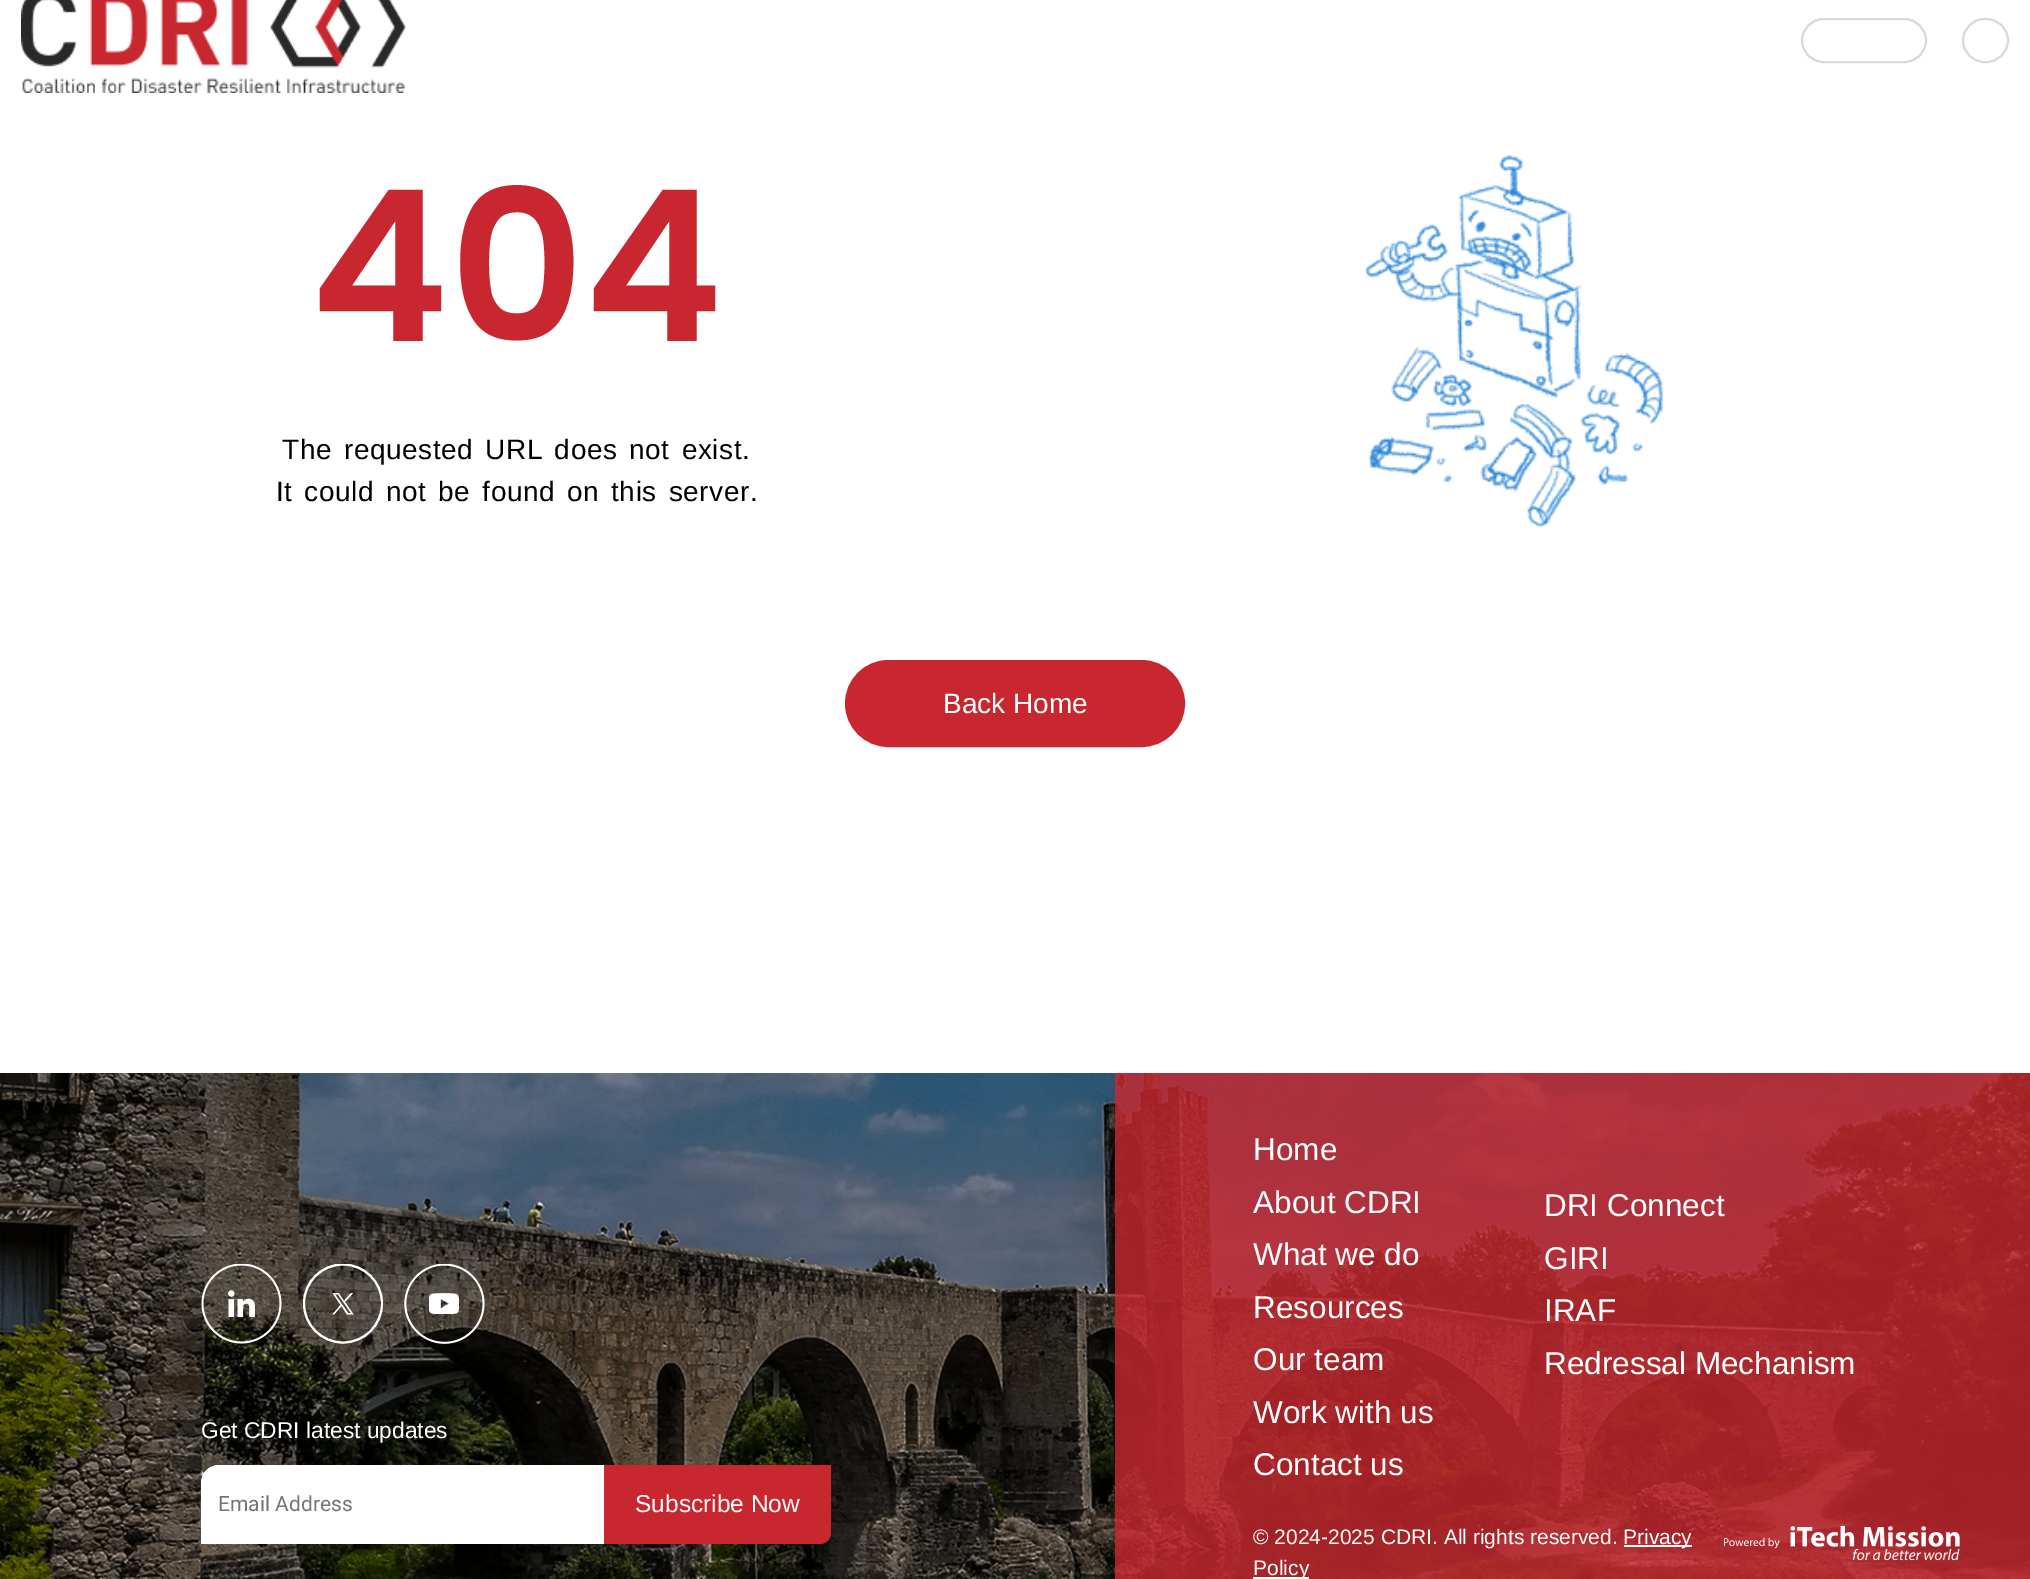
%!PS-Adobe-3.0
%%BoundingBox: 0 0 2030 1579
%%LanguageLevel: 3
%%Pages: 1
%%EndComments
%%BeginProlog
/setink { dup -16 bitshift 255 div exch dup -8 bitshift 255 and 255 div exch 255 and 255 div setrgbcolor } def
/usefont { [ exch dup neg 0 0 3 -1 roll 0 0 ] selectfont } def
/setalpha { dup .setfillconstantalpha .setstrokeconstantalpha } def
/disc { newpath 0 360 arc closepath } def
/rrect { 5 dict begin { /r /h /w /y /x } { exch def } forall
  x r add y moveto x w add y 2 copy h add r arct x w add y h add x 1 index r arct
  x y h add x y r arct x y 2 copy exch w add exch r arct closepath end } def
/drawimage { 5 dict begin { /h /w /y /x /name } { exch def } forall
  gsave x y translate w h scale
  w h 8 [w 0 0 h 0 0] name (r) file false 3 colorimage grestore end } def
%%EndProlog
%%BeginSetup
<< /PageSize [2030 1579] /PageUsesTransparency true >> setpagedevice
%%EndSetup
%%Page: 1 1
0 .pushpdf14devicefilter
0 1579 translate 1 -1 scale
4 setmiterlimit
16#FFFFFF setink
0 0 2030 1579 rectfill
(img1.raw) 21 0 385 93 drawimage
16#D9D9D9 setink
2 setlinewidth
1802 19 124 43 21.5 rrect stroke
1963 19 45 43 21.5 rrect stroke
/Poppins-SemiBold 210 usefont
16#C92730 setink
310 341 moveto (404) show
/LiberationSans-Regular 28 usefont
16#000000 setink
282 459 moveto 3.5 0 32 0.55 0 (The requested URL does not exist.) awidthshow
276 501 moveto 3.5 0 32 0.55 0 (It could not be found on this server.) awidthshow
(img2.raw) 1365 154 298 373 drawimage
16#C92730 setink
846 661 338 85 42.5 rrect gsave fill grestore
stroke
16#FFFFFF setink
943 713 moveto (Back Home) show
(img3.raw) 0 1073 2030 506 drawimage
(img4.raw) 201 1264 81 80 drawimage
gsave
303 1264 80 80 rectclip
2.1 setlinewidth
343 1303.5 39 disc stroke
grestore
345 1302 moveto 353 1293 lineto 351 1293 lineto 344 1301 lineto 338.5 1293 lineto 332.5 1293 lineto 340.5 1305 lineto 332.5 1314.5 lineto 334 1314.5 lineto 341.5 1306 lineto 347 1314.5 lineto 353.5 1314.5 lineto closepath 342.5 1305 moveto 335 1294.5 lineto 338 1294.5 lineto 351 1313 lineto 348 1313 lineto closepath fill
(img5.raw) 404 1264 81 80 drawimage
/LiberationSans-Regular 22.75 usefont
201 1438 moveto (Get CDRI latest updates) show
219 1465 moveto 639 1465 lineto 639 1526 lineto 639 1536 631 1544 621 1544 curveto 201 1544 lineto 201 1483 lineto 201 1473 209 1465 219 1465 curveto closepath fill
/Roboto-Regular 21 usefont
16#757575 setink
218 1511 moveto (Email Address) show
16#C92730 setink
604 1465 moveto 831 1465 lineto 831 1533 lineto 831 1539 826 1544 820 1544 curveto 604 1544 lineto closepath fill
/LiberationSans-Regular 24.5 usefont
16#FFFFFF setink
635 1512 moveto (Subscribe Now) show
0.8 setalpha
16#C92730 setink
1115 1073 915 506 rectfill
/LiberationSans-Regular 31.5 usefont
1 setalpha
16#FFFFFF setink
[
    [(Home) 1253 1160]
    [(About CDRI) 1253 1213]
    [(What we do) 1253 1265]
    [(Resources) 1253 1318]
    [(Our team) 1253 1370]
    [(Work with us) 1253 1423]
    [(Contact us) 1253 1475]
    [(DRI Connect) 1544 1216]
    [(GIRI) 1544 1269]
    [(IRAF) 1544 1321]
    [(Redressal Mechanism) 1544 1374]
] { aload pop moveto show } forall
/LiberationSans-Regular 21 usefont
1253 1544 moveto (© 2024-2025 CDRI. All rights reserved.) show
1624 1545 68 2 rectfill
1623 1544 moveto (Privacy) show
1253 1577 56 2 rectfill
1253 1575 moveto (Policy) show
(img6.raw) 1724 1526 236 35 drawimage
.poppdf14devicefilter showpage
%%EOF
